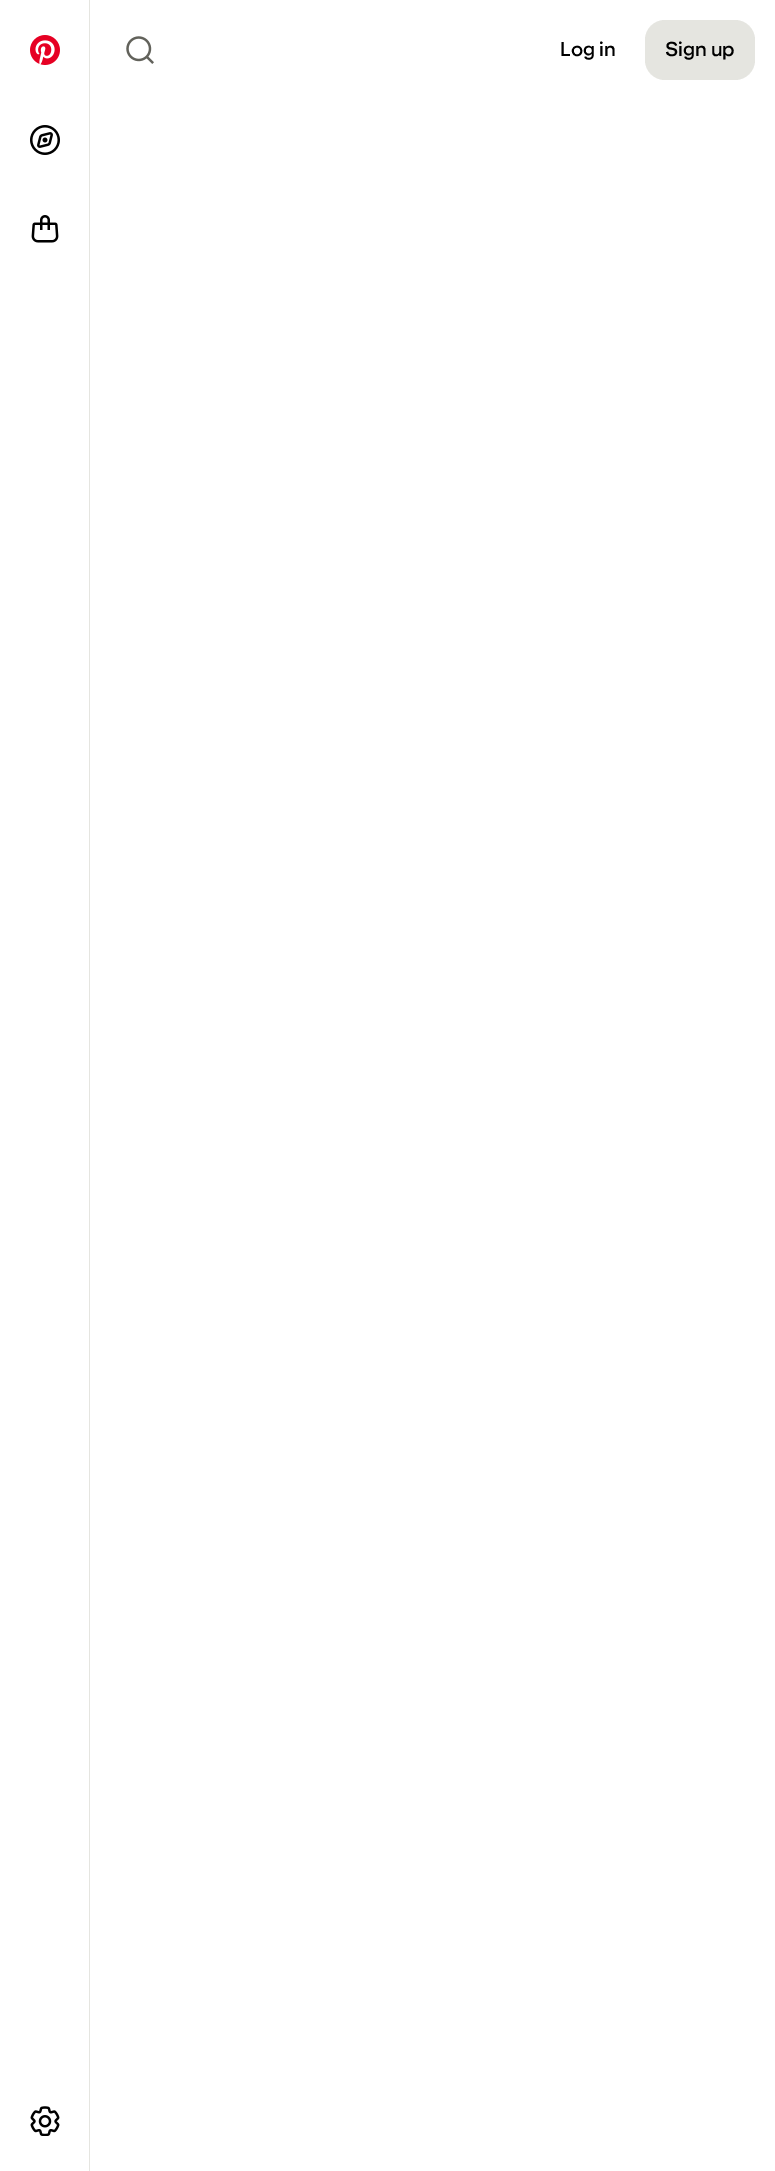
%!PS-Adobe-3.0
%%BoundingBox: 0 0 775 2171
%%LanguageLevel: 3
%%Pages: 1
%%EndComments
%%BeginProlog
/setink { dup -16 bitshift 255 div exch dup -8 bitshift 255 and 255 div exch 255 and 255 div setrgbcolor } def
/usefont { [ exch dup neg 0 0 3 -1 roll 0 0 ] selectfont } def
/rrect { 5 dict begin { /r /h /w /y /x } { exch def } forall
  x r add y moveto x w add y 2 copy h add r arct x w add y h add x 1 index r arct
  x y h add x y r arct x y 2 copy exch w add exch r arct closepath end } def
/drawimage { 5 dict begin { /h /w /y /x /name } { exch def } forall
  gsave x y translate w h scale
  w h 8 [w 0 0 h 0 0] name (r) file false 3 colorimage grestore end } def
%%EndProlog
%%BeginSetup
<< /PageSize [775 2171] >> setpagedevice
%%EndSetup
%%Page: 1 1
0 2171 translate 1 -1 scale
4 setmiterlimit
16#FFFFFF setink
0 0 775 2171 rectfill
16#E5E5E0 setink
89 0 1 2171 rectfill
(img1.raw) 30 35 30 30 drawimage
(img2.raw) 30 125 30 30 drawimage
(img3.raw) 31 215 28 28 drawimage
(img4.raw) 30 2106 30 30 drawimage
(img5.raw) 126 36 28 28 drawimage
/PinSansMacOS-Medium 20 usefont
16#000000 setink
560 56 moveto (Log in) show
16#E5E5E0 setink
645 20 110 60 20 rrect fill
16#000000 setink
665 56 moveto (Sign up) show
showpage
%%EOF
